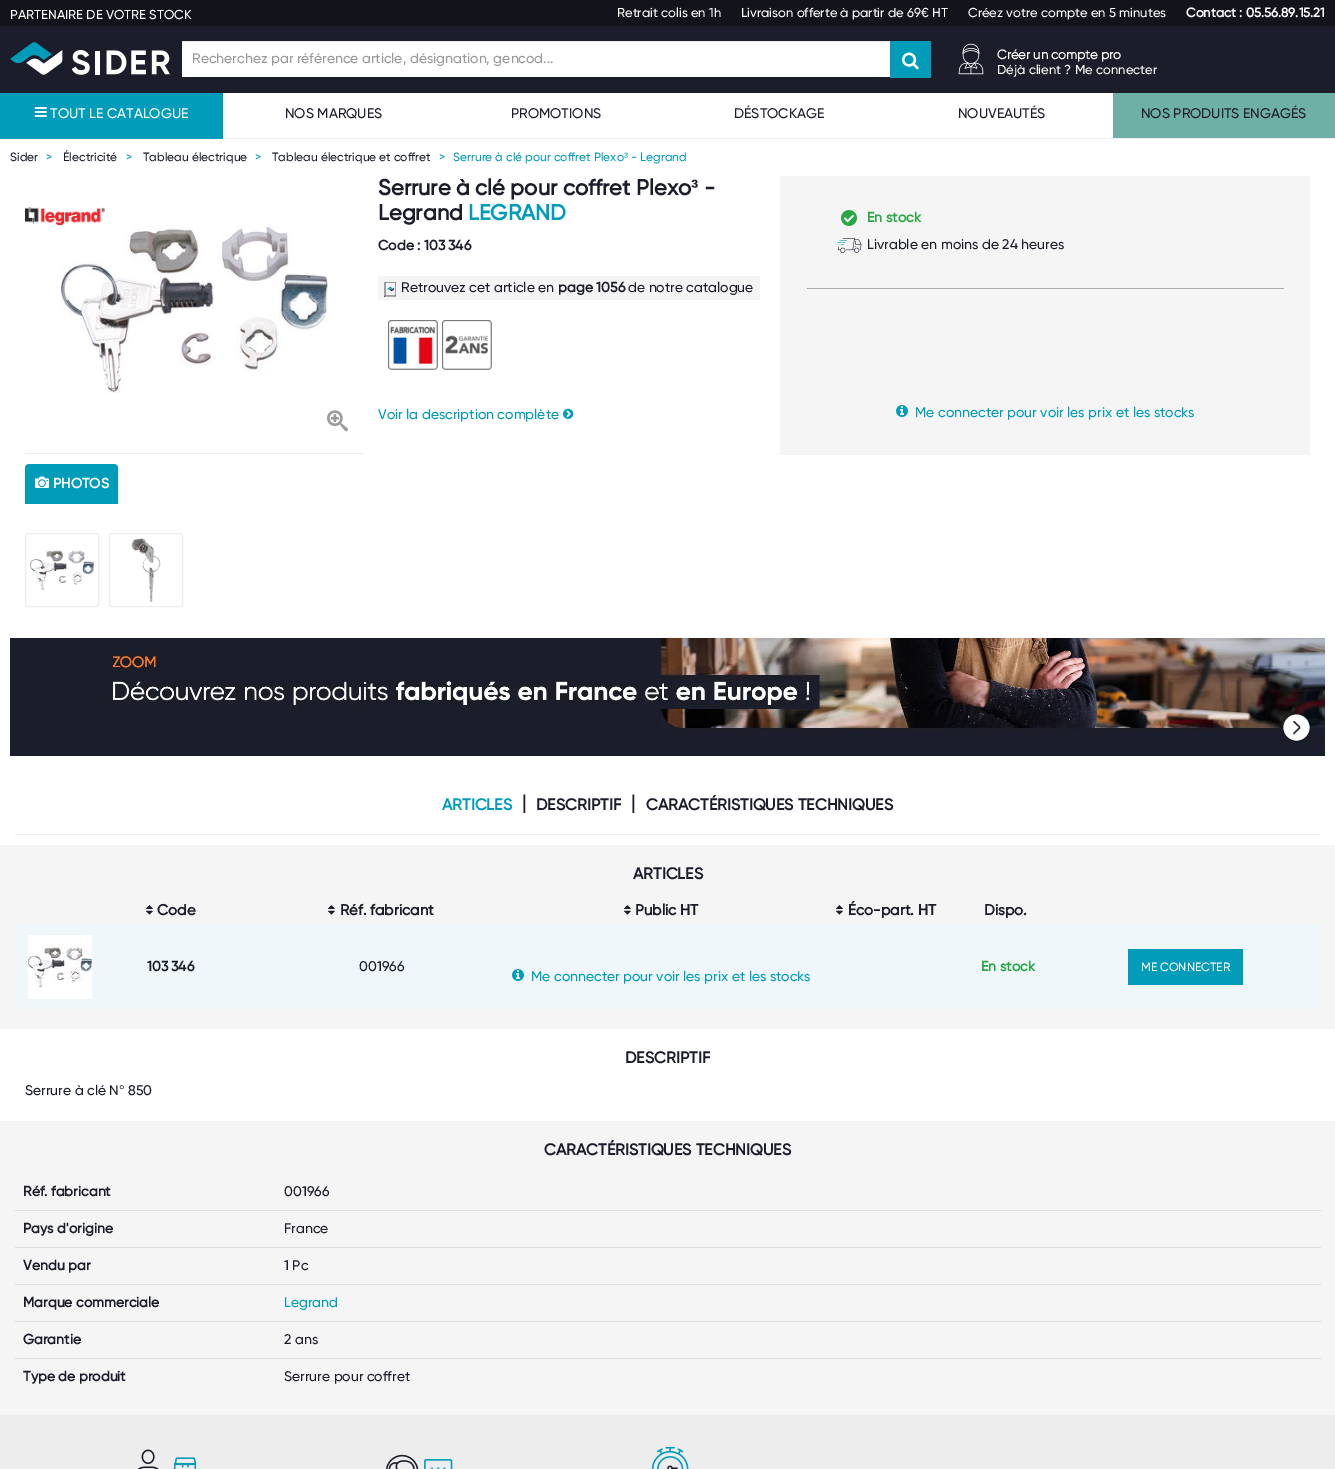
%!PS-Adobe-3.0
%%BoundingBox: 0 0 1335 1469
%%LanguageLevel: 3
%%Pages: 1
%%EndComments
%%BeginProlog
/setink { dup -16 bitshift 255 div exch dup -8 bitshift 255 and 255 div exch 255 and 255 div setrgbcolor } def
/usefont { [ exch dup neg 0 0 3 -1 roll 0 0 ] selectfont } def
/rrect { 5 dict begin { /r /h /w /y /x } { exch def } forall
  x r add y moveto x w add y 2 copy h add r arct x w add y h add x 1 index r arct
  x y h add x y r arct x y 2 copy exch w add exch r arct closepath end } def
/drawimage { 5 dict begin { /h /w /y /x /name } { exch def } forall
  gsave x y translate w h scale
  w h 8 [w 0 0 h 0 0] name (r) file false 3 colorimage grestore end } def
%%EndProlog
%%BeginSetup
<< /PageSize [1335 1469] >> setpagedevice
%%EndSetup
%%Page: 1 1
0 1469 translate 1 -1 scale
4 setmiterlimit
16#FFFFFF setink
0 0 1335 1469 rectfill
16#13131C setink
0 0 1335 26 rectfill
/Gilroy-Medium 13 usefont
16#FFFFFF setink
[
    [(PARTENAIRE DE VOTRE STOCK) 10 19]
    [(Retrait colis en 1h) 617 17]
    [(Livraison offerte à partir de 69€ HT) 741 17]
    [(Créez votre compte en 5 minutes) 968 17]
] { aload pop moveto show } forall
/Gilroy-Bold 13 usefont
1186 17 moveto (Contact : 05.56.89.15.21) show
16#1B1D2A setink
0 26 1335 67 rectfill
(img1.raw) 10 42 160 33 drawimage
16#FFFFFF setink
182 42 708 35 rectfill
16#ECECEC setink
182 41 708 1 rectfill
/Gilroy-Medium 14 usefont
16#999999 setink
192 63 moveto (Recherchez par référence article, désignation, gencod...) show
16#009CB9 setink
890 41 41 37 rectfill
(img2.raw) 902 52 17 18 drawimage
(img3.raw) 958 43 26 32 drawimage
/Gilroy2-Bold 13 usefont
16#FFFFFF setink
997 59 moveto (Créer un compte pro) show
/Gilroy-Medium 13 usefont
997 74 moveto (Déjà client ? Me connecter) show
16#009CB9 setink
0 93 223 46 rectfill
(img4.raw) 34 107 13 10 drawimage
/Gilroy-Medium 14 usefont
16#FFFFFF setink
50 118 moveto (TOUT LE CATALOGUE) show
16#EEEEEE setink
223 138 1112 1 rectfill
16#1B1D2A setink
[
    [(NOS MARQUES) 285 118]
    [(PROMOTIONS) 511 118]
    [(DÉSTOCKAGE) 734 118]
    [(NOUVEAUTÉS) 958 118]
] { aload pop moveto show } forall
16#6FB0A6 setink
1113 93 222 45 rectfill
16#1B1D2A setink
1141 118 moveto (NOS PRODUITS ENGAGÉS) show
/Gilroy-Medium 12 usefont
10 161 moveto (Sider) show
16#009CB9 setink
46 161 moveto (>) show
16#1B1D2A setink
63 161 moveto (Électricité) show
16#009CB9 setink
126 161 moveto (>) show
16#1B1D2A setink
143 161 moveto (Tableau électrique) show
16#009CB9 setink
255 161 moveto (>) show
16#1B1D2A setink
272 161 moveto (Tableau électrique et coffret) show
16#009CB9 setink
439 161 moveto (>) show
453 161 moveto (Serrure à clé pour coffret Plexo) show
/LiberationSans-Regular 12 usefont
624 161 moveto (³) show
/Gilroy-Medium 12 usefont
631 161 moveto (- Legrand) show
/Gilroy-Bold 22 usefont
16#1B1D2A setink
378 195 moveto (Serrure à clé pour coffret Plexo) show
/LiberationSans-Bold 22 usefont
691 195 moveto (³) show
/Gilroy-Bold 22 usefont
704 195 moveto (-) show
378 220 moveto (Legrand) show
16#009CB9 setink
468 220 moveto (LEGRAND) show
/Gilroy-Bold 14 usefont
16#1B1D2A setink
378 250 moveto (Code : 103) show
448 250 moveto (346) show
16#F5F5F5 setink
378 276 382 24 rectfill
(img5.raw) 384 282 12 15 drawimage
/Gilroy-Medium 14 usefont
16#1B1D2A setink
401 292 moveto (Retrouvez cet article en) show
/Gilroy-Bold 14 usefont
558 292 moveto (page 1056) show
/Gilroy-Medium 14 usefont
628 292 moveto (de notre catalogue) show
(img6.raw) 388 320 50 50 drawimage
(img7.raw) 442 320 50 50 drawimage
16#009CB9 setink
378 419 moveto (Voir la description complète) show
(img8.raw) 563 408 11 11 drawimage
16#F5F5F5 setink
780 176 530 279 rectfill
16#AAAAAA setink
807 288 477 1 rectfill
(img9.raw) 841 210 16 16 drawimage
/Gilroy-Bold 14 usefont
16#28A745 setink
867 222 moveto (En stock) show
(img10.raw) 837 238 25 15 drawimage
/Gilroy-Medium 14 usefont
16#1B1D2A setink
867 249 moveto (Livrable en moins de 24 heures) show
(img11.raw) 896 405 12 12 drawimage
16#009CB9 setink
915 417 moveto (Me connecter pour voir les prix et les stocks) show
(img13.raw) 61 225 267 168 drawimage
(img12.raw) 25 207 80 19 drawimage
16#EDEDED setink
25 453 338 1 rectfill
(img14.raw) 327 410 21 22 drawimage
16#009CB9 setink
29 464 moveto 114 464 lineto 116 464 118 466 118 468 curveto 118 504 lineto 25 504 lineto 25 468 lineto 25 466 27 464 29 464 curveto closepath fill
(img15.raw) 35 476 14 12 drawimage
/Gilroy-Bold 14 usefont
16#FFFFFF setink
53 488 moveto (PHOTOS) show
16#EDEDED setink
25.5 533.5 73 73 2.5 rrect stroke
(img16.raw) 30 550 64 40 drawimage
109.5 533.5 73 73 2.5 rrect stroke
(img17.raw) 131 538 30 64 drawimage
(img18.raw) 10 638 1315 118 drawimage
15 834 1305 1 rectfill
/Gilroy-Bold 16 usefont
16#009CB9 setink
442 810 moveto (ARTICLES) show
/Gilroy-Medium 20 usefont
16#1B1D2A setink
522 809 moveto (|) show
/Gilroy-Bold 16 usefont
536 810 moveto (DESCRIPTIF) show
/Gilroy-Medium 20 usefont
631 809 moveto (|) show
/Gilroy-Bold 16 usefont
646 810 moveto (CARACTÉRISTIQUES TECHNIQUES) show
16#F5F5F5 setink
0 845 1335 184 rectfill
16#1B1D2A setink
633 879 moveto (ARTICLES) show
(img19.raw) 146 905 7 10 drawimage
/Gilroy-Bold 15 usefont
157 915 moveto (Code) show
(img19.raw) 328 905 7 10 drawimage
340 915 moveto (Réf. fabricant) show
(img19.raw) 624 905 7 10 drawimage
635 915 moveto (Public HT) show
(img19.raw) 836 905 7 10 drawimage
848 915 moveto (Éco-part. HT) show
984 915 moveto (Dispo.) show
16#EFF7FA setink
15 925 1305 84 rectfill
(img20.raw) 28 935 64 64 drawimage
/Gilroy-Bold 14 usefont
16#1B1D2A setink
147 971 moveto (103) show
171 971 moveto (346) show
/Gilroy-Medium 14 usefont
359 971 moveto (001966) show
/Gilroy-Bold 14 usefont
16#28A745 setink
981 971 moveto (En stock) show
16#009CB9 setink
1128 949 115 36 rectfill
/Gilroy-Medium 12 usefont
16#FFFFFF setink
1141 971 moveto (ME CONNECTER) show
(img21.raw) 512 969 12 12 drawimage
/Gilroy-Medium 14 usefont
16#009CB9 setink
531 981 moveto (Me connecter pour voir les prix et les stocks) show
/Gilroy-Bold 16 usefont
16#1B1D2A setink
625 1063 moveto (DESCRIPTIF) show
/Gilroy-Medium 14 usefont
25 1095 moveto (Serrure à clé N) show
/LiberationSans-Regular 14 usefont
119 1095 moveto (°) show
/Gilroy-Medium 14 usefont
128 1095 moveto (850) show
16#F5F5F5 setink
0 1121 1335 294 rectfill
/Gilroy-Bold 16 usefont
16#1B1D2A setink
544 1155 moveto (CARACTÉRISTIQUES TECHNIQUES) show
/Gilroy-Bold 14 usefont
23 1196 moveto (Réf. fabricant) show
/Gilroy-Medium 14 usefont
284 1196 moveto (001966) show
/Gilroy-Bold 14 usefont
23 1233 moveto (Pays d'origine) show
16#DDDDDD setink
15 1210 1306 1 rectfill
/Gilroy-Medium 14 usefont
16#1B1D2A setink
284 1233 moveto (France) show
/Gilroy-Bold 14 usefont
23 1270 moveto (Vendu par) show
16#DDDDDD setink
15 1247 1306 1 rectfill
/Gilroy-Medium 14 usefont
16#1B1D2A setink
284 1270 moveto (1 Pc) show
/Gilroy-Bold 14 usefont
23 1307 moveto (Marque commerciale) show
16#DDDDDD setink
15 1284 1306 1 rectfill
/Gilroy-Medium 14 usefont
16#009CB9 setink
284 1307 moveto (Legrand) show
/Gilroy-Bold 14 usefont
16#1B1D2A setink
23 1344 moveto (Garantie) show
16#DDDDDD setink
15 1321 1306 1 rectfill
/Gilroy-Medium 14 usefont
16#1B1D2A setink
284 1344 moveto (2 ans) show
/Gilroy-Bold 14 usefont
23 1381 moveto (Type de produit) show
16#DDDDDD setink
15 1358 1306 1 rectfill
/Gilroy-Medium 14 usefont
16#1B1D2A setink
284 1381 moveto (Serrure pour coffret) show
16#EDEDED setink
0 1415 1335 54 rectfill
(img22.raw) 137 1449 60 20 drawimage
(img23.raw) 386 1454 67 15 drawimage
(img24.raw) 651 1446 38 23 drawimage
showpage
%%EOF
